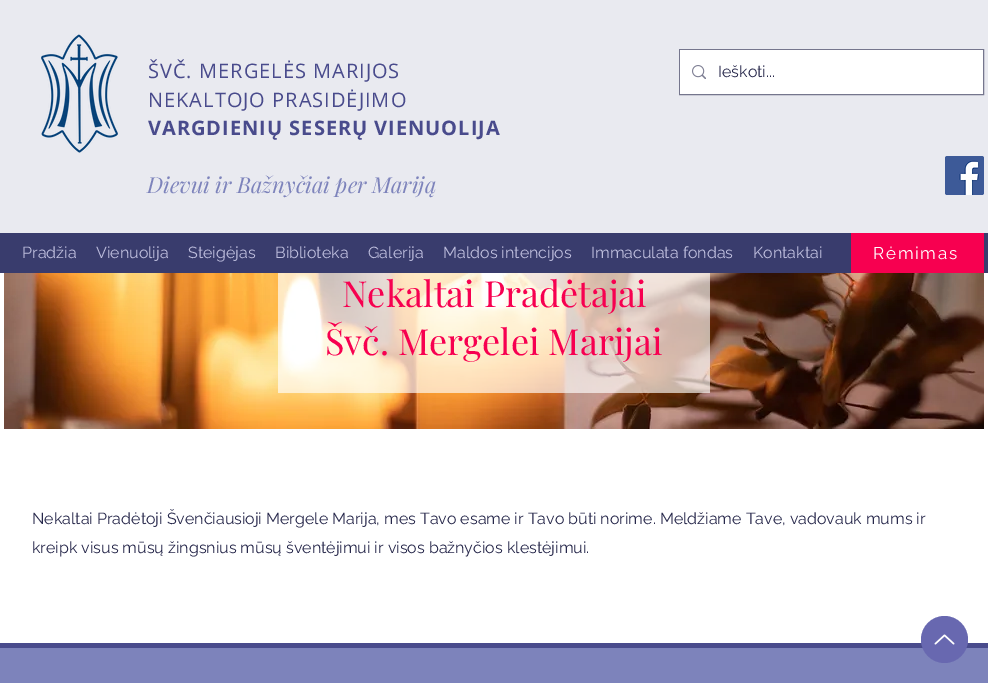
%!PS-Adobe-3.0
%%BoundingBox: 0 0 988 683
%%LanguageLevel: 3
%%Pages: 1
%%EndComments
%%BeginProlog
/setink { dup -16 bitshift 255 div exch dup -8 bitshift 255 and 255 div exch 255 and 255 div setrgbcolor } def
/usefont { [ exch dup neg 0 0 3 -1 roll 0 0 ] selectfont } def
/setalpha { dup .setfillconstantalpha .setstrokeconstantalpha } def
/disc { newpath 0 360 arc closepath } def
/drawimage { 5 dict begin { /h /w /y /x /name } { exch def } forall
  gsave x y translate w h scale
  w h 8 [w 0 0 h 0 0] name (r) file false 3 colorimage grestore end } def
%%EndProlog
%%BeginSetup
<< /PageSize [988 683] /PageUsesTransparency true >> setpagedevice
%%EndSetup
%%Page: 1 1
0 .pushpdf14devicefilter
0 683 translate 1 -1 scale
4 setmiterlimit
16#FFFFFF setink
0 0 988 683 rectfill
16#E9EAF0 setink
0 0 988 233 rectfill
(img1.raw) 41 34 77 119 drawimage
/OpenSans-Regular 20 usefont
16#494B8C setink
148 78 moveto 1 0 (ŠVČ. MERGELĖS MARIJOS) ashow
148 107 moveto 1 0 (NEKALTOJO PRASIDĖJIMO) ashow
/OpenSans-Bold 20 usefont
148 135 moveto 1 0 (VARGDIENIŲ SESERŲ VIENUOLIJA) ashow
16#75768D setink
679.5 49.5 304 45 rectstroke
16#FFFFFF setink
680 50 303 44 rectfill
(img2.raw) 692 65 14 14 drawimage
/Raleway-Regular 16 usefont
16#27284B setink
718 77 moveto (Ieškoti...) show
/PlayfairDisplay-Italic 22 usefont
16#7D83BB setink
147 193 moveto (Dievui ir Bažnyčiai per Mariją) show
(img3.raw) 945 156 39 39 drawimage
16#393C6D setink
0 233 988 40 rectfill
/Raleway-Regular 16 usefont
16#BEBEDD setink
[
    [(Pradžia) 22 258]
    [(Vienuolija) 96 258]
    [(Steigėjas) 188 258]
    [(Biblioteka) 275 258]
    [(Galerija) 368 258]
    [(Maldos intencijos) 443 258]
    [(Immaculata fondas) 591 258]
    [(Kontaktai) 753 258]
] { aload pop moveto show } forall
16#F70050 setink
851 233 133 40 rectfill
/Raleway-Regular 17 usefont
16#FFFFFF setink
873 259 moveto 1.75 0 (Rėmimas) ashow
(img4.raw) 4 273 980 156 drawimage
0.65 setalpha
278 273 432 120 rectfill
/PlayfairDisplay-Regular 36 usefont
1 setalpha
16#F70050 setink
342 307 moveto (Nekaltai Pradėtajai) show
325 355 moveto (Švč. Mergelei Marijai) show
/Raleway-Regular 16 usefont
16#27284B setink
32 524 moveto (Nekaltai Pradėtoji Švenčiausioji Mergele Marija, mes Tavo esame ir Tavo būti norime. Meldžiame Tave, vadovauk mums ir) show
32 553 moveto (kreipk visus mūsų žingsnius mūsų šventėjimui ir visos bažnyčios klestėjimui.) show
16#7D83BB setink
0 648 988 35 rectfill
16#494B8C setink
0 643 988 5 rectfill
16#6868B0 setink
944.5 639.5 23.5 disc fill
(img5.raw) 934 634 21 11 drawimage
.poppdf14devicefilter showpage
%%EOF
